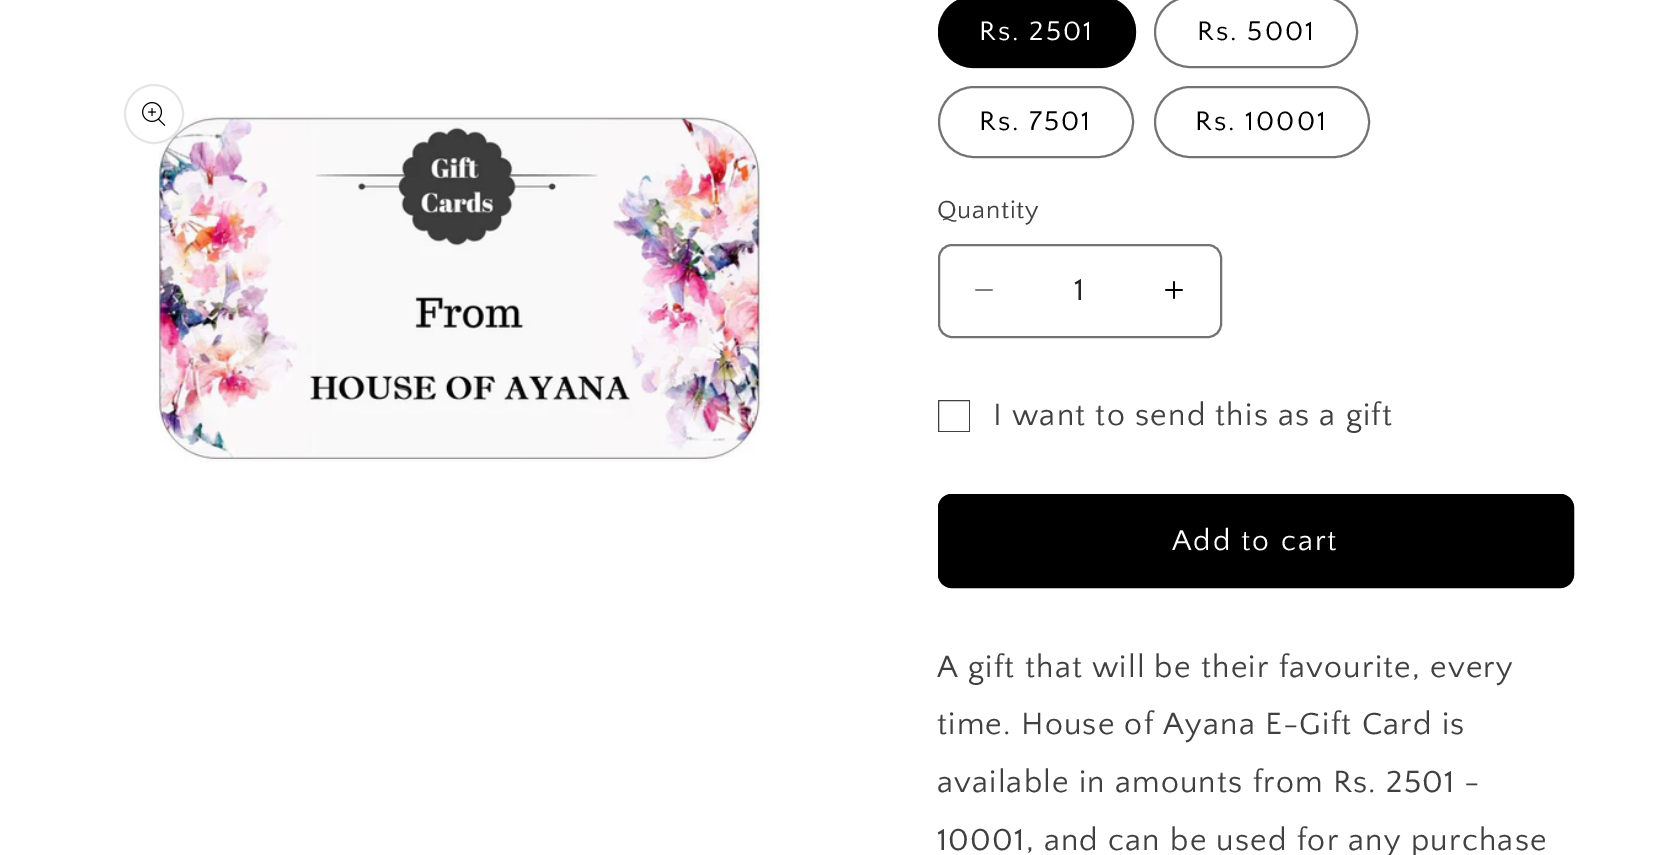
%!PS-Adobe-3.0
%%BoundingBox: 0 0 1674 855
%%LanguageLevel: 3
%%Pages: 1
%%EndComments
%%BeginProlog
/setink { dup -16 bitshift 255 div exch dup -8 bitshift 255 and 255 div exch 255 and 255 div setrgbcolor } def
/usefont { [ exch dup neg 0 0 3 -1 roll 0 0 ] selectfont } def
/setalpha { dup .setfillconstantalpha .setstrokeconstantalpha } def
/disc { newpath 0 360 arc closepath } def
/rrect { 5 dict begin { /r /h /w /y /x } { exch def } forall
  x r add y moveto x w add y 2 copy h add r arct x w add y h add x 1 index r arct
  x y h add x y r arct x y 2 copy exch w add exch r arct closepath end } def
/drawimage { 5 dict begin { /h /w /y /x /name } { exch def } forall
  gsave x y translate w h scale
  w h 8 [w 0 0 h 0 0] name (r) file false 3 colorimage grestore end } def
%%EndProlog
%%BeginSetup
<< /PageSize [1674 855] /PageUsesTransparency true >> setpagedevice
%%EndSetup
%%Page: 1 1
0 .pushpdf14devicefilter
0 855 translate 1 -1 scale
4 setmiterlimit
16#FFFFFF setink
0 0 1674 855 rectfill
(img2.raw) 154 115 615 348 drawimage
154 114 30 disc fill
0.1 setalpha
16#000000 setink
2 setlinewidth
154 114 29 disc stroke
1 setalpha
(img1.raw) 142 102 24 24 drawimage
938 -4 198 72 36 rrect fill
0.55 setalpha
939 -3 196 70 35 rrect stroke
/QuattrocentoSans-Regular 28 usefont
1 setalpha
16#FFFFFF setink
979 40 moveto 2 0 (Rs. 2501) ashow
16#737373 setink
1155 -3 202 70 35 rrect stroke
16#000000 setink
1197 40 moveto 2 0 (Rs. 5001) ashow
16#737373 setink
939 87 194 70 35 rrect stroke
16#000000 setink
979 130 moveto 2 0 (Rs. 7501) ashow
16#737373 setink
1155 87 214 70 35 rrect stroke
16#000000 setink
1195 130 moveto 2 0 (Rs. 10001) ashow
/QuattrocentoSans-Regular 26 usefont
16#404040 setink
937 218 moveto 0.75 0 (Quantity) ashow
(img3.raw) 975 289 18 2 drawimage
(img4.raw) 1165 281 18 18 drawimage
16#737373 setink
939 245 282 92 13 rrect stroke
/QuattrocentoSans-Regular 32 usefont
16#262626 setink
1074 300 moveto (1) show
gsave
938 400 32 32 rectclip
16#404040 setink
938 400 32 32 rectstroke
grestore
16#404040 setink
993 425 moveto 1.2 0 (I want to send this as a gift) ashow
16#000000 setink
938 494 636 94 14 rrect fill
939 495 634 92 13 rrect stroke
/QuattrocentoSans-Regular 30 usefont
16#FFFFFF setink
1172 550 moveto 2 0 (Add to cart) ashow
/QuattrocentoSans-Regular 32 usefont
16#404040 setink
937 677 moveto 1.2 0 (A gift that will be their favourite, every) ashow
937 734 moveto 1.2 0 (time. House of Ayana E-Gift Card is) ashow
937 792 moveto 1.2 0 (available in amounts from Rs. 2501 -) ashow
937 850 moveto 1.2 0 (10001, and can be used for any purchase) ashow
.poppdf14devicefilter showpage
%%EOF
